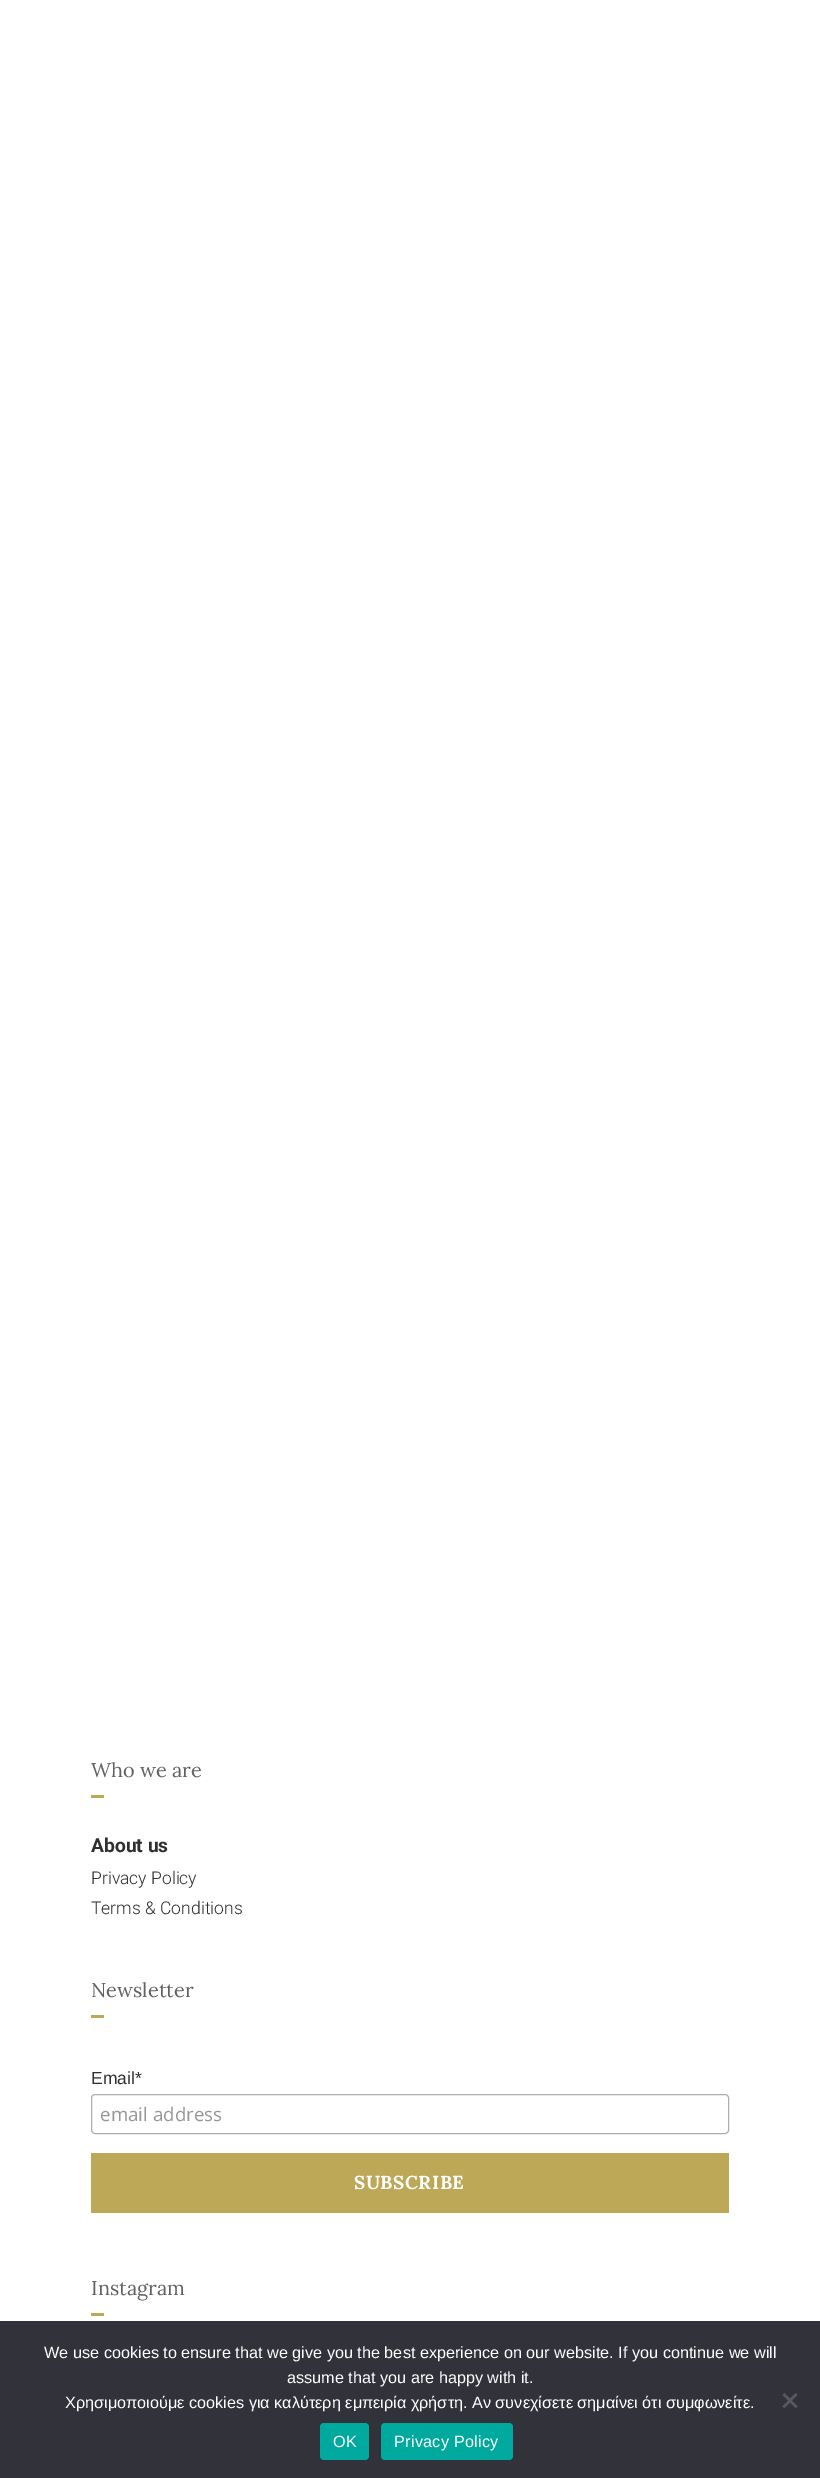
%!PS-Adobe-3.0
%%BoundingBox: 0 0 820 2478
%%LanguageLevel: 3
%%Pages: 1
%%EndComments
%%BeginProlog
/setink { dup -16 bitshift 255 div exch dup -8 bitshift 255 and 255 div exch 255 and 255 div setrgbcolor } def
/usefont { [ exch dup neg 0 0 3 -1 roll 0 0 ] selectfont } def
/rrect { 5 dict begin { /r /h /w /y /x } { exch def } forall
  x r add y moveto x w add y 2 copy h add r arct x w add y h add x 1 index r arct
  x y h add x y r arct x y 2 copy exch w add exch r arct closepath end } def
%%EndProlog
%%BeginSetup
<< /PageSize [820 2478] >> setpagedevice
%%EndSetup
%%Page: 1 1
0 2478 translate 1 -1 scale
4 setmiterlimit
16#FFFFFF setink
0 0 820 2478 rectfill
/Lora-Regular 20 usefont
16#616161 setink
91 1777 moveto (Who we are) show
16#BCA857 setink
91 1795 13 3 rectfill
/Roboto-Bold 19.25 usefont
16#2F2F2F setink
91 1852 moveto (About us) show
/Roboto-Light 17.5 usefont
91 1884 moveto (Privacy Policy) show
91 1914 moveto (Terms & Conditions) show
/Lora-Regular 20 usefont
16#616161 setink
91 1997 moveto (Newsletter) show
16#BCA857 setink
91 2015 13 3 rectfill
/LiberationSans-Regular 17.5 usefont
16#2F2F2F setink
91 2084 moveto (Email*) show
16#ABB0B2 setink
91.5 2094.5 637 39 3.5 rrect stroke
/OpenSans-Regular 18.75 usefont
16#979797 setink
100 2121 moveto (email address) show
16#BCA857 setink
91 2153 638 60 1 rrect fill
/Lora-Bold 18.75 usefont
16#FFFFFF setink
354 2189 moveto 0.5 0 (SUBSCRIBE) ashow
/Lora-Regular 20 usefont
16#616161 setink
91 2295 moveto (Instagram) show
16#BCA857 setink
91 2313 13 3 rectfill
16#32323A setink
0 2321 820 157 rectfill
/LiberationSans-Regular 16.25 usefont
16#FFFFFF setink
[
    [(We use cookies to ensure that we give you the best experience on our website. If you continue we will) 44 2358]
    [(assume that you are happy with it.) 287 2383]
    [(Χρησιμοποιούμε cookies για καλύτερη εμπειρία χρήστη. Αν συνεχίσετε σημαίνει ότι συμφωνείτε.) 65 2408]
] { aload pop moveto show } forall
16#59595D setink
795.5 2393 moveto 797.5 2395 lineto 784.5 2408 lineto 782.5 2406.5 lineto closepath fill
782.5 2395 moveto 784.5 2393 lineto 797.5 2406.5 lineto 795.5 2408 lineto closepath fill
16#00A99D setink
320 2423 49 37 4 rrect fill
16#FFFFFF setink
333 2447 moveto 0.25 0 (OK) ashow
16#00A99D setink
381 2423 132 37 4 rrect fill
16#FFFFFF setink
394 2447 moveto 0.25 0 (Privacy Policy) ashow
showpage
%%EOF
